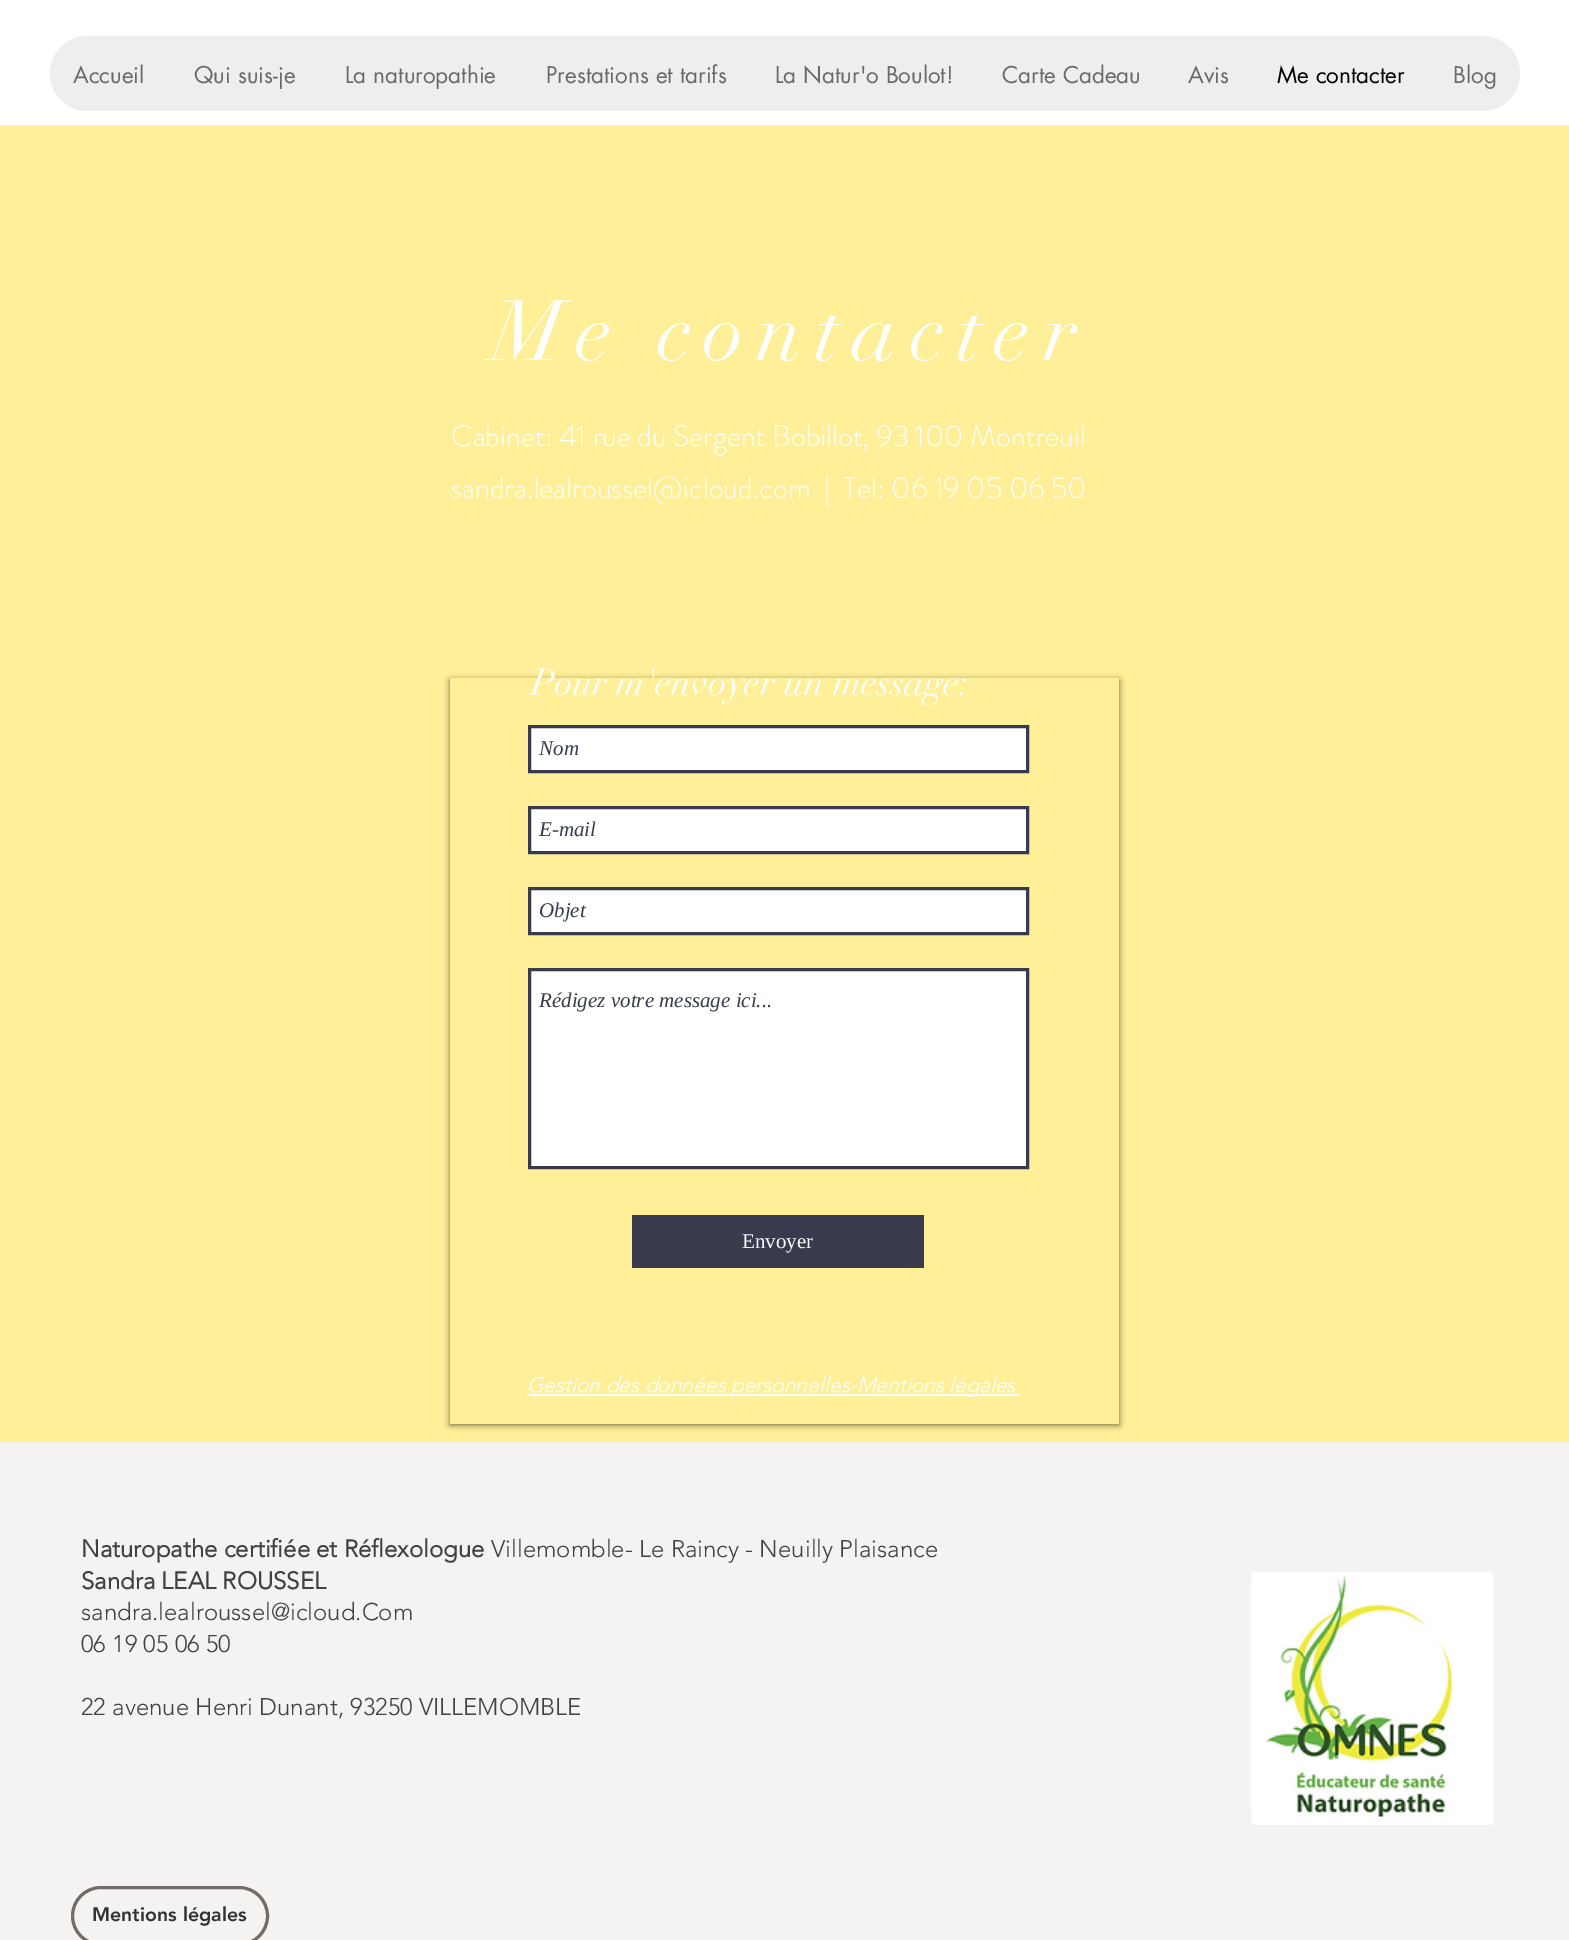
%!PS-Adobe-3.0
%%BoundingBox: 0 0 1569 1940
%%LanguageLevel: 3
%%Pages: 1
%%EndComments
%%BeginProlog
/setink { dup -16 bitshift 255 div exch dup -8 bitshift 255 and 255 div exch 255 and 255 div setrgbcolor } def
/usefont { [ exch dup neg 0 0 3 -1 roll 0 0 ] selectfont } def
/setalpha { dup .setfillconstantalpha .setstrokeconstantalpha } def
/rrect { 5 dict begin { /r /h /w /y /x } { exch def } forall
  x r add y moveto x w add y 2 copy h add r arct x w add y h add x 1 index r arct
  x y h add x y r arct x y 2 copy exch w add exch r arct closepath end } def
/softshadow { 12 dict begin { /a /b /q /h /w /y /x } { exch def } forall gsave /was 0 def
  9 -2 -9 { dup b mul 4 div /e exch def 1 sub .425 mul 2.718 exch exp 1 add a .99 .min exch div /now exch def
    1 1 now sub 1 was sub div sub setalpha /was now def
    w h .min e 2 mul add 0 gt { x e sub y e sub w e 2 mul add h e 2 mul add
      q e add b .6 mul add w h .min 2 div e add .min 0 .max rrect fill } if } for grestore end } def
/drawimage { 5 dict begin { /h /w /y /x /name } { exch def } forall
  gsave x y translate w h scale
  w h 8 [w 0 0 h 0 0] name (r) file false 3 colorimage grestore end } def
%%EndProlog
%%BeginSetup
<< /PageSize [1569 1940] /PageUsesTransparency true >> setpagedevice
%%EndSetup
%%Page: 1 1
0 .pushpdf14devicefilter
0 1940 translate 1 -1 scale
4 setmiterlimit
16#F2ECE4 setink
0 0 1569 1940 rectfill
16#FFFFFF setink
0 0 1569 125 rectfill
16#F0EDED setink
50 36 1470 75 37.5 rrect fill
/futura-Regular 22.5 usefont
16#696969 setink
[
    [(Accueil) 73 83]
    [(Qui suis-je) 194 83]
    [(La naturopathie) 345 83]
    [(Prestations et tarifs) 546 83]
    [(La Natur'o Boulot!) 775 83]
    [(Carte Cadeau) 1002 83]
    [(Avis) 1188 83]
] { aload pop moveto show } forall
16#000000 setink
1277 83 moveto (Me contacter) show
16#696969 setink
1453 83 moveto (Blog) show
16#FFEF98 setink
0 126 1569 1315 rectfill
/didot-Regular 84 usefont
16#FFFFFF setink
492 360 moveto 12.6 0 (Me contacter) ashow
/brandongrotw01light-Light 30 usefont
[
    [(Cabinet: 41 rue du Sergent Bobillot, 93 100 Montreuil) 451 446]
    [(sandra.lealroussel@icloud.com) 451 498]
    [(|  Tel: 06 19 05 06 50) 824 498]
] { aload pop moveto show } forall
gsave
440 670 moveto 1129 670 lineto 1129 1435 lineto 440 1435 lineto closepath 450 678 moveto 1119 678 lineto 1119 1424 lineto 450 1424 lineto closepath eoclip newpath
16#000000 setink
450 680 669 745 0 3 0.6 softshadow
grestore
/didot-Regular 37.5 usefont
531 695 moveto (Pour m'envoyer un message:) show
529.5 726.5 moveto 1027.5 726.5 lineto 1027.5 771.5 lineto 529.5 771.5 lineto closepath gsave fill grestore
16#373B4D setink
3 setlinewidth
stroke
/LiberationSerif-Italic 21 usefont
539 755 moveto (Nom) show
16#FFFFFF setink
529.5 807.5 moveto 1027.5 807.5 lineto 1027.5 852.5 lineto 529.5 852.5 lineto closepath gsave fill grestore
16#373B4D setink
stroke
539 836 moveto (E-mail) show
16#FFFFFF setink
529.5 888.5 moveto 1027.5 888.5 lineto 1027.5 933.5 lineto 529.5 933.5 lineto closepath gsave fill grestore
16#373B4D setink
stroke
539 917 moveto (Objet) show
16#FFFFFF setink
529.5 969.5 moveto 1027.5 969.5 lineto 1027.5 1167.5 lineto 529.5 1167.5 lineto closepath gsave fill grestore
16#373B4D setink
stroke
539 1007 moveto (Rédigez votre message ici...) show
632 1215 292 53 rectfill
/LiberationSerif-Regular 21 usefont
16#FFFFFF setink
742 1248 moveto (Envoyer) show
527 1394 493 2 rectfill
/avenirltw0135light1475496-LightItalic 21 usefont
527 1392 moveto (Gestion des données personnelles-Mentions légales) show
16#F5F2F2 setink
0 1442 1569 498 rectfill
16#FFF1A5 setink
0 1441 1569 1 rectfill
/avenirltw0135light1475496-Bold 24 usefont
16#414141 setink
81 1557 moveto (Naturopathe certifiée et Réflexologue) show
/avenirltw0135light1475496-Light 24 usefont
491 1557 moveto (Villemomble- Le Raincy - Neuilly Plaisance) show
/avenirltw0135light1475496-Bold 24 usefont
81 1589 moveto (Sandra LEAL ROUSSEL) show
/avenirltw0135light1475496-Light 24 usefont
[
    [(sandra.lealroussel@icloud.Com) 81 1620]
    [(06 19 05 06 50) 81 1652]
    [(22 avenue Henri Dunant, 93250 VILLEMOMBLE) 81 1715]
] { aload pop moveto show } forall
(img1.raw) 1251 1572 243 253 drawimage
16#726B67 setink
72.5 1887.5 195 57 28.5 rrect stroke
/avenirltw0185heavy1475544-Black 19.5 usefont
16#323232 setink
92 1921 moveto (Mentions légales) show
.poppdf14devicefilter showpage
%%EOF
